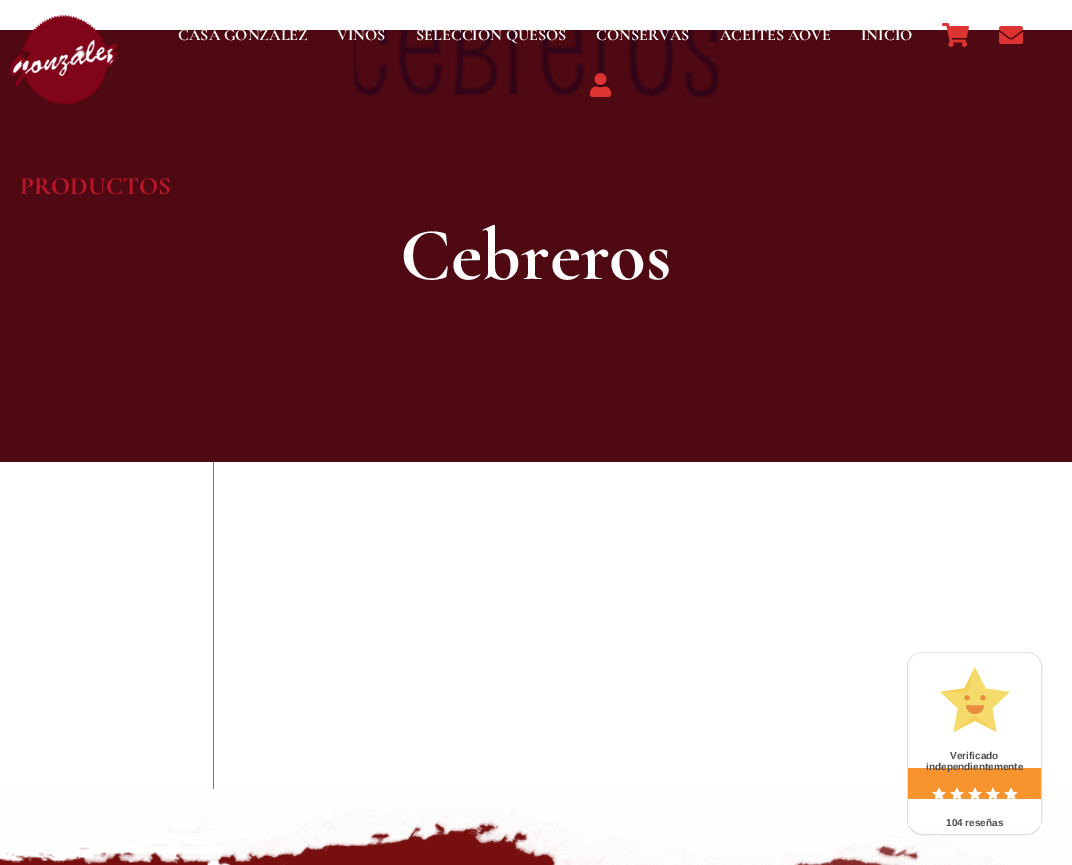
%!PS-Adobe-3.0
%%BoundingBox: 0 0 1072 865
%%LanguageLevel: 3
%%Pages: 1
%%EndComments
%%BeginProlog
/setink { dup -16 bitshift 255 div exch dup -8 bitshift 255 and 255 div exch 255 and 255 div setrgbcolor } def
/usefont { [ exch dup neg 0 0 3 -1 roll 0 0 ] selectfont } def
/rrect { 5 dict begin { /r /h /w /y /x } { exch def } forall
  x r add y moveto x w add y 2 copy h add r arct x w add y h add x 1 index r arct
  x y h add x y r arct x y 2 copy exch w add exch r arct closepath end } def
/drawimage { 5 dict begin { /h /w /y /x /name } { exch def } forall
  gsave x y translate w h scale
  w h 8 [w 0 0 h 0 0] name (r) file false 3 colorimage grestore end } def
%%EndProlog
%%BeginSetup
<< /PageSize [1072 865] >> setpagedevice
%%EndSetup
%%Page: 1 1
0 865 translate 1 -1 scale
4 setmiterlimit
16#FFFFFF setink
0 0 1072 865 rectfill
(img5.raw) 0 30 1072 432 drawimage
(img1.raw) 10 15 109 90 drawimage
/CormorantGaramond-Bold 16 usefont
16#FFFCFC setink
[
    [(CASA GONZÁLEZ) 178 40]
    [(VINOS) 337 40]
    [(SELECCIÓN QUESOS) 416 40]
    [(CONSERVAS) 596 40]
    [(ACEITES AOVE) 720 40]
    [(INICIO) 861 40]
] { aload pop moveto show } forall
(img2.raw) 942 23 27 24 drawimage
(img3.raw) 999 26 24 18 drawimage
(img4.raw) 590 73 21 24 drawimage
16#7A7A7A setink
213 462 1 327 rectfill
/CormorantGaramond-Bold 25 usefont
16#BD152B setink
20 194 moveto (PRODUCTOS) show
/CormorantGaramond-Bold 75 usefont
16#FFFCFC setink
400 279 moveto (Cebreros) show
16#770F0F setink
0 809 1005 56 rectfill
(img6.raw) 0 789 1072 76 drawimage
16#DFDFDF setink
907.5 652.5 134 182 14.5 rrect stroke
16#FFFFFF setink
922 653 moveto 1027 653 lineto 1034.5 653 1041 659.5 1041 667 curveto 1041 768 lineto 908 768 lineto 908 667 lineto 908 659.5 914.5 653 922 653 curveto closepath fill
16#F8942D setink
908 768 133 31 rectfill
gsave
908 653 133 181 14 rrect clip newpath
16#FFFFFF setink
908 799 133 27 rectfill
grestore
(img7.raw) 940 667 70 65 drawimage
/LiberationSans-Bold 10 usefont
16#4C4C4C setink
950 759 moveto (Verificado) show
926 770 moveto (independientemente) show
(img8.raw) 932 787 14 12 drawimage
(img9.raw) 932 787 14 12 drawimage
(img8.raw) 950 787 14 12 drawimage
(img9.raw) 950 787 14 12 drawimage
(img8.raw) 968 787 14 12 drawimage
(img9.raw) 968 787 14 12 drawimage
(img8.raw) 986 787 14 12 drawimage
(img9.raw) 986 787 14 12 drawimage
(img8.raw) 1004 787 14 12 drawimage
(img10.raw) 1004 787 11 12 drawimage
946 826 moveto (104 reseñas) show
showpage
%%EOF
